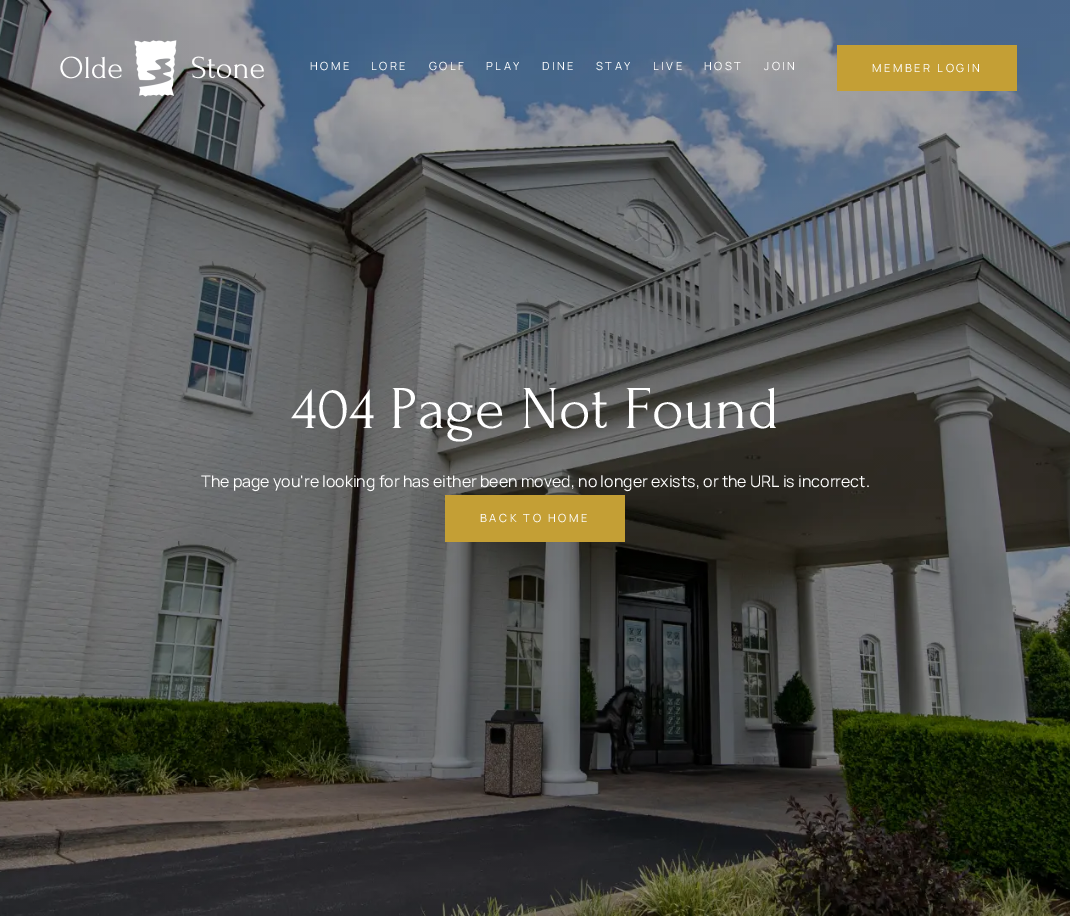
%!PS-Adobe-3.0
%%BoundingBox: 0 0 1070 916
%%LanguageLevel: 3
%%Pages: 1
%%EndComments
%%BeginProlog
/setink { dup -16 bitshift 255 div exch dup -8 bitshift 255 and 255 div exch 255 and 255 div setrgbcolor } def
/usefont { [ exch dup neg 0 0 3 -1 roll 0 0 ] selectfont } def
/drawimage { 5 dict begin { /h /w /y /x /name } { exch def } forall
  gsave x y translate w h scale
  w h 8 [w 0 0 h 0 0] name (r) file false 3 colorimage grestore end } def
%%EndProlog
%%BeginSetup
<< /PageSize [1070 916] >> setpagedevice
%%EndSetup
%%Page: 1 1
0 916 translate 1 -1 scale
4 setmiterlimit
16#FFFFFF setink
0 0 1070 916 rectfill
(img2.raw) 0 0 1070 916 drawimage
(img1.raw) 60 40 204 57 drawimage
/Manrope-Regular 11.25 usefont
310 70 moveto 2.5 0 (HOME) ashow
371 70 moveto 2.5 0 (LORE) ashow
429 70 moveto 2.5 0 (GOLF) ashow
486 70 moveto 2.5 0 (PLAY) ashow
542 70 moveto 2.5 0 (DINE) ashow
596 70 moveto 2.5 0 (STAY) ashow
653 70 moveto 2.5 0 (LIVE) ashow
704 70 moveto 2.5 0 (HOST) ashow
764 70 moveto 2.5 0 (JOIN) ashow
16#C49F35 setink
837 45 180 46 rectfill
16#FFFFFF setink
872 72 moveto 2.5 0 (MEMBER LOGIN) ashow
/Forum-Regular 60.75 usefont
291 428 moveto (404 Page Not Found) show
/Manrope-Regular 16 usefont
201 487 moveto (The page you're looking for has either been moved, no longer exists, or the URL is incorrect.) show
16#C49F35 setink
445 495 180 47 rectfill
/Manrope-Regular 11.25 usefont
16#FFFFFF setink
480 522 moveto 2.5 0 (BACK TO HOME) ashow
showpage
%%EOF
